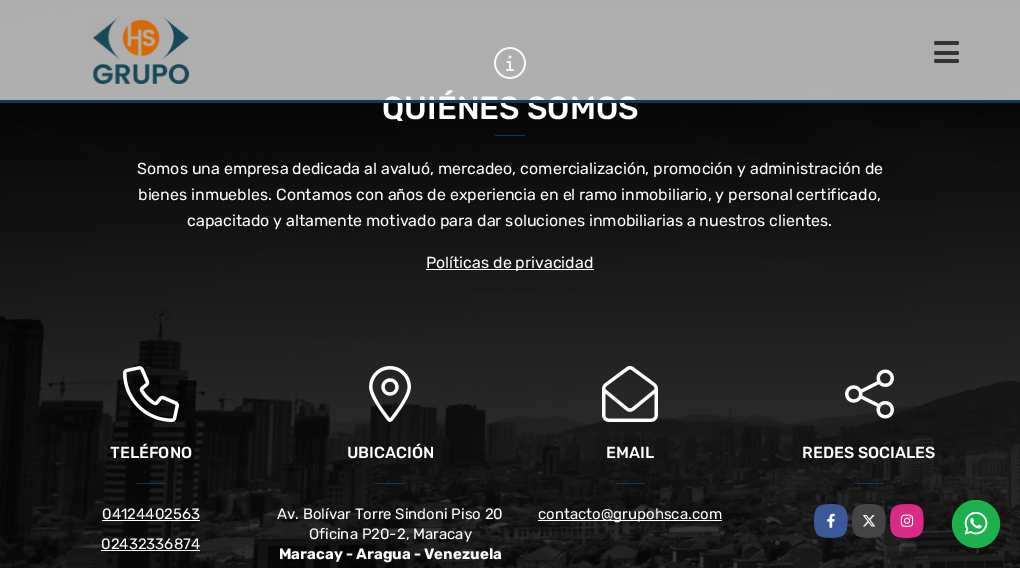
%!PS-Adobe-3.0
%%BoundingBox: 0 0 1020 568
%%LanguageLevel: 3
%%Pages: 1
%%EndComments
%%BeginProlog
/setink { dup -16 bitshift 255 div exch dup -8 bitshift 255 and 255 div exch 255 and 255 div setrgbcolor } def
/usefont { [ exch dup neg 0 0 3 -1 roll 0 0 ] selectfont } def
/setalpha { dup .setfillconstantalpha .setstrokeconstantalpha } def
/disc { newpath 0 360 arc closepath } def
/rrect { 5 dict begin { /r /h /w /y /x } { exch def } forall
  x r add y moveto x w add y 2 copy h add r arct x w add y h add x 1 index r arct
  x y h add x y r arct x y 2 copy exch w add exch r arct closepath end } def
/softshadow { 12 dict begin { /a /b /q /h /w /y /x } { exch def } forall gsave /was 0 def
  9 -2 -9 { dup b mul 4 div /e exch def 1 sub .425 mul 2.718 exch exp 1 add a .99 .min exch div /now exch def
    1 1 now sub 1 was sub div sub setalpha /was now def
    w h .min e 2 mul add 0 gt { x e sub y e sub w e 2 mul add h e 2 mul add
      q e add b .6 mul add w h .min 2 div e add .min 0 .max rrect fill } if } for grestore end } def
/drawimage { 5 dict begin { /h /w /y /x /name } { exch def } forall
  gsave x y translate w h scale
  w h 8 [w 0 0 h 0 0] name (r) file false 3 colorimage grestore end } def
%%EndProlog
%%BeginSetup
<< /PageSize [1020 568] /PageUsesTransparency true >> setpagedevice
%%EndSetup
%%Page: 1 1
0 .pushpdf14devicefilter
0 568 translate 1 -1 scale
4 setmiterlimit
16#FFFFFF setink
0 0 1020 568 rectfill
(img2.raw) 0 0 1020 568 drawimage
(img3.raw) 494 47 32 32 drawimage
16#10395B setink
495 135 30 1 rectfill
gsave
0 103 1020 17 rectclip
16#000000 setink
0 8 1020 103 0 8 0.15 softshadow
grestore
/Rubik-Medium 32 usefont
16#FFFFFF setink
382 119 moveto (QUIÉNES SOMOS) show
0.7 setalpha
16#F7F7F7 setink
0 0 1020 100 rectfill
1 setalpha
16#10395B setink
0 100 1020 3 rectfill
(img1.raw) 93 17 97 67 drawimage
16#333333 setink
934 41 25 4 2 rrect fill
934 51 25 4 2 rrect fill
934 59 25 4 2 rrect fill
/Rubik-Regular 16 usefont
16#FFFFFF setink
[
    [(Somos una empresa dedicada al avaluó, mercadeo, comercialización, promoción y administración de) 137 174]
    [(bienes inmuebles. Contamos con años de experiencia en el ramo inmobiliario, y personal certificado,) 138 200]
    [(capacitado y altamente motivado para dar soluciones inmobiliarias a nuestros clientes.) 187 226]
] { aload pop moveto show } forall
426 269 168 1 rectfill
426 268 moveto (Políticas de privacidad) show
(img4.raw) 123 366 56 56 drawimage
/Rubik-Medium 16 usefont
110 458 moveto (TELÉFONO) show
16#10395B setink
136 483 30 1 rectfill
/Rubik-Regular 15 usefont
16#FFFFFF setink
102 519 moveto (04124402563) show
102 520 98 1 rectfill
101 549 moveto (02432336874) show
101 550 99 1 rectfill
(img5.raw) 369 366 42 56 drawimage
/Rubik-Medium 16 usefont
347 458 moveto (UBICACIÓN) show
16#10395B setink
375 483 30 1 rectfill
/Rubik-Regular 15 usefont
16#FFFFFF setink
277 519 moveto (Av. Bolívar Torre Sindoni Piso 20) show
309 539 moveto (Oficina P20-2, Maracay) show
/Rubik-Bold 15 usefont
279 559 moveto (Maracay - Aragua - Venezuela) show
(img6.raw) 602 366 56 56 drawimage
/Rubik-Medium 16 usefont
606 458 moveto (EMAIL) show
16#10395B setink
615 483 30 1 rectfill
16#FFFFFF setink
538 520 184 1 rectfill
/Rubik-Regular 15 usefont
538 519 moveto (contacto@grupohsca.com) show
(img7.raw) 845 369 49 50 drawimage
/Rubik-Medium 16 usefont
802 458 moveto (REDES SOCIALES) show
16#10395B setink
854 483 30 1 rectfill
(img8.raw) 814 504 34 34 drawimage
(img9.raw) 827 513 8 15 drawimage
(img10.raw) 852 504 34 34 drawimage
(img11.raw) 862 515 14 12 drawimage
(img12.raw) 890 504 34 34 drawimage
(img13.raw) 900 514 14 13 drawimage
16#000000 setink
952 500 48 48 24 3 0.2 softshadow
16#1BB24E setink
976 524 24 disc fill
(img14.raw) 964 511 24 24 drawimage
.poppdf14devicefilter showpage
%%EOF
